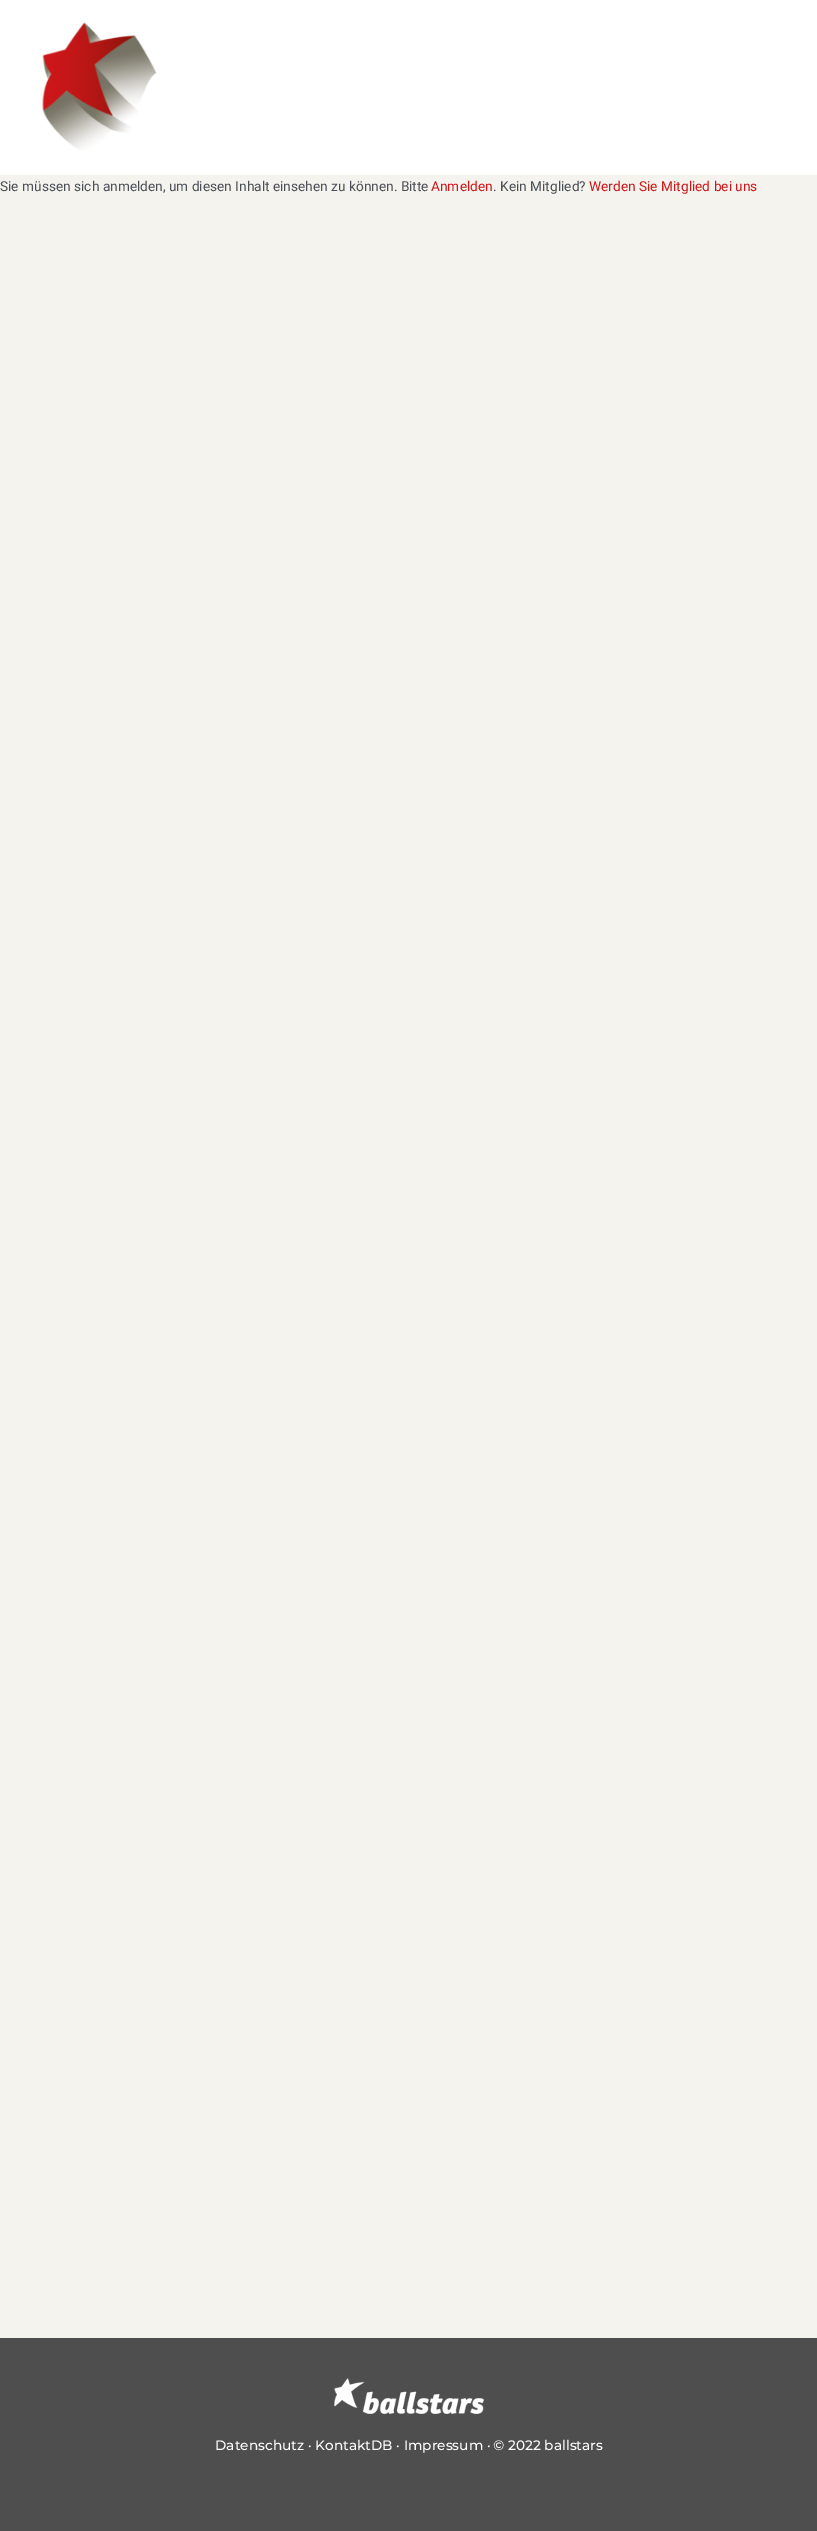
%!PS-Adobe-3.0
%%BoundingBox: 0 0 817 2531
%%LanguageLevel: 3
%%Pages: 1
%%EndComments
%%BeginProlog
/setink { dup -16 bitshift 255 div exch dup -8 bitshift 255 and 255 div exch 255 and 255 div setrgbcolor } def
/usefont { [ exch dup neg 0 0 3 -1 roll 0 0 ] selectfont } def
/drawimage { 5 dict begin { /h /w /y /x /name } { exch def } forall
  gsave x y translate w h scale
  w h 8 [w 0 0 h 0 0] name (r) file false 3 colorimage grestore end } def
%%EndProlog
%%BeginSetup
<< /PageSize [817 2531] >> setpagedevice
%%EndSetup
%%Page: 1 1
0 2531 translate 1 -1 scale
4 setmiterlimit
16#F5F3EE setink
0 0 817 2531 rectfill
16#FFFFFF setink
0 0 817 175 rectfill
(img1.raw) 42 22 115 129 drawimage
/Roboto-Regular 13.7 usefont
16#4B4F58 setink
0 191 moveto (Sie müssen sich anmelden, um diesen Inhalt einsehen zu können. Bitte) show
16#CD1719 setink
431 191 moveto (Anmelden) show
16#4B4F58 setink
493 191 moveto (. Kein Mitglied?) show
16#CD1719 setink
589 191 moveto (Werden Sie Mitglied bei uns) show
16#4F4E4E setink
0 2338 817 193 rectfill
(img2.raw) 334 2378 150 36 drawimage
/Montserrat-Medium 13.7 usefont
16#FFFFFF setink
215 2450 moveto (Datenschutz · KontaktDB · Impressum ·) show
/Montserrat-MediumItalic 13.7 usefont
493 2450 moveto (©) show
/Montserrat-Medium 13.7 usefont
508 2450 moveto (2022 ballstars) show
showpage
%%EOF
